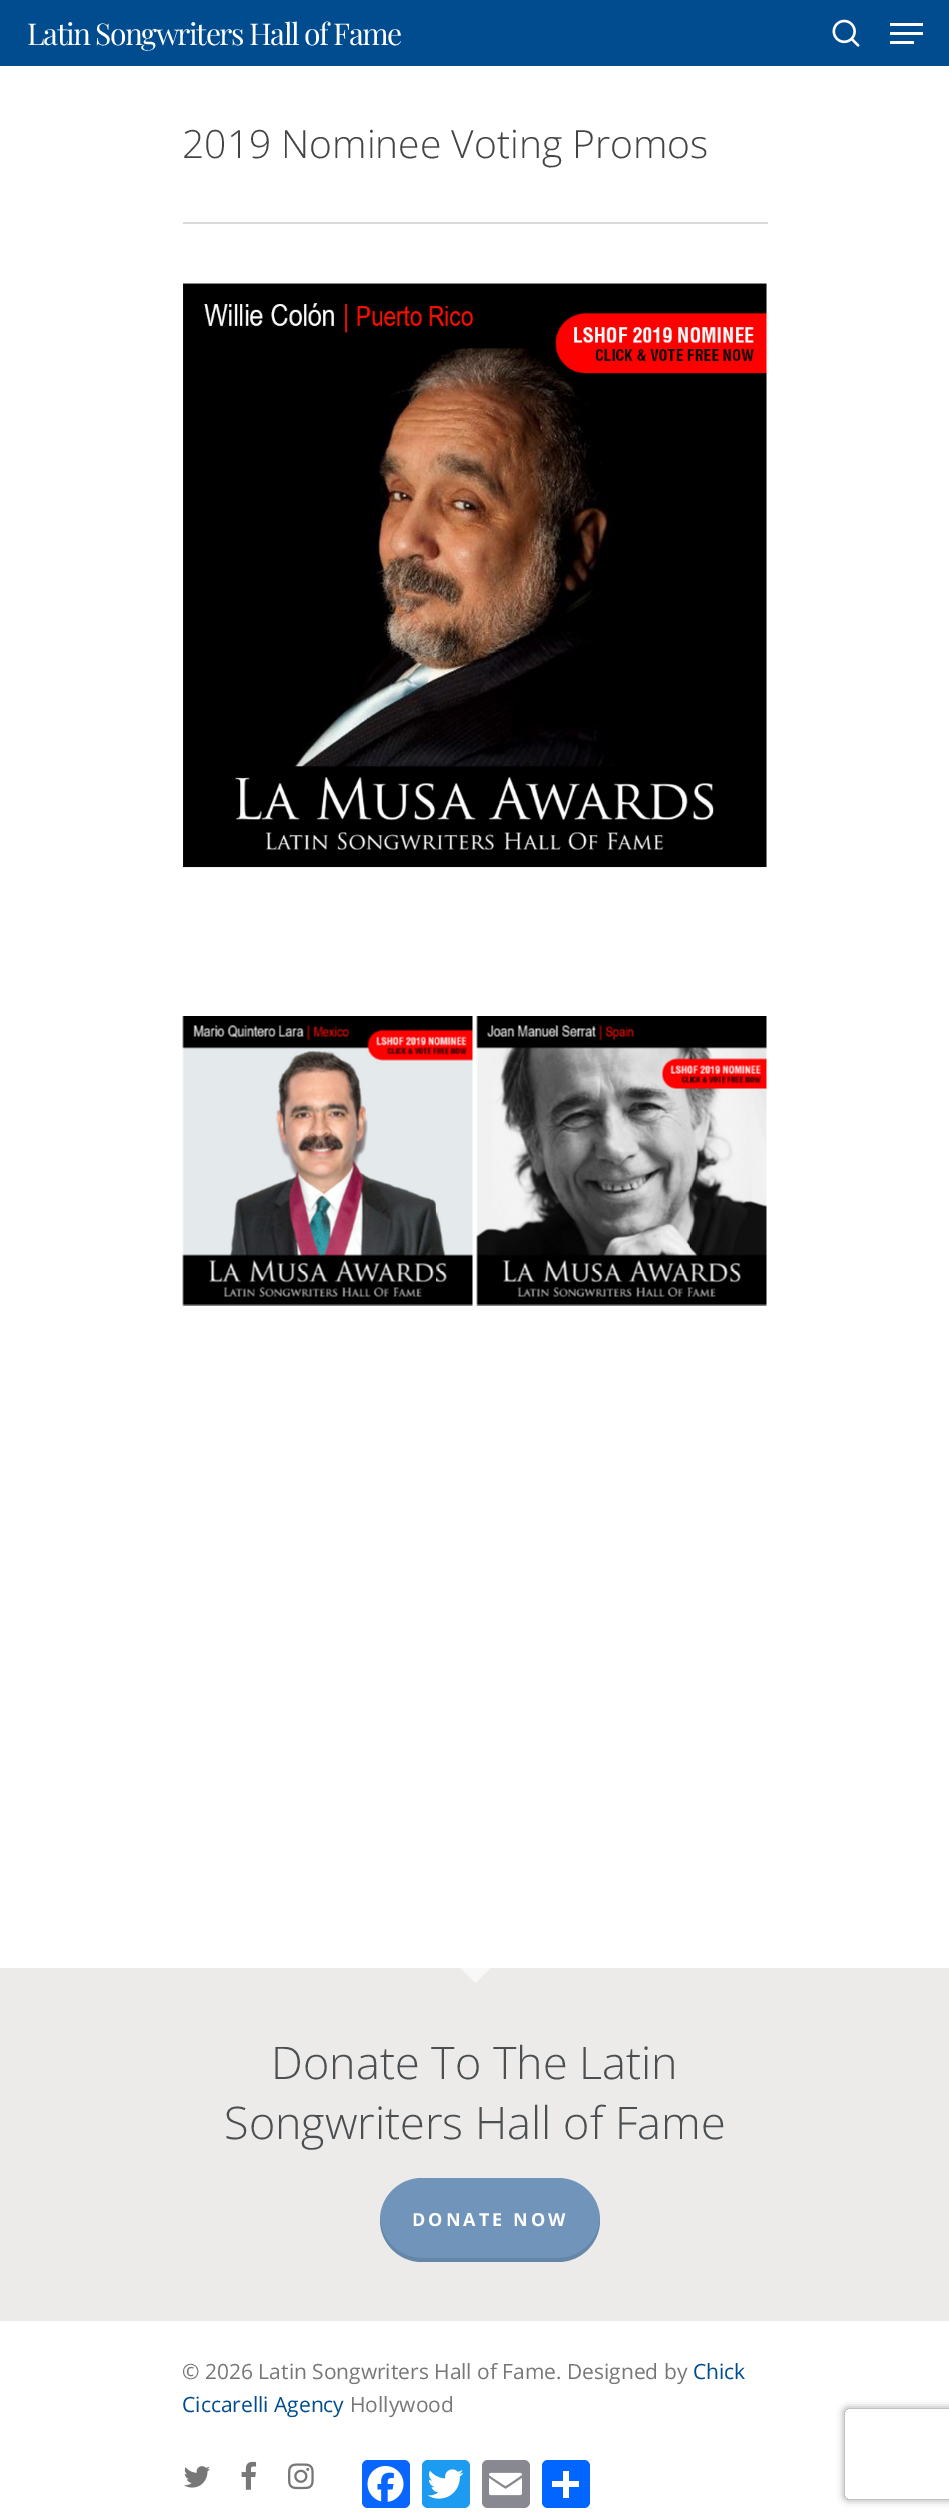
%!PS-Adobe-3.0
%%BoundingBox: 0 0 949 2519
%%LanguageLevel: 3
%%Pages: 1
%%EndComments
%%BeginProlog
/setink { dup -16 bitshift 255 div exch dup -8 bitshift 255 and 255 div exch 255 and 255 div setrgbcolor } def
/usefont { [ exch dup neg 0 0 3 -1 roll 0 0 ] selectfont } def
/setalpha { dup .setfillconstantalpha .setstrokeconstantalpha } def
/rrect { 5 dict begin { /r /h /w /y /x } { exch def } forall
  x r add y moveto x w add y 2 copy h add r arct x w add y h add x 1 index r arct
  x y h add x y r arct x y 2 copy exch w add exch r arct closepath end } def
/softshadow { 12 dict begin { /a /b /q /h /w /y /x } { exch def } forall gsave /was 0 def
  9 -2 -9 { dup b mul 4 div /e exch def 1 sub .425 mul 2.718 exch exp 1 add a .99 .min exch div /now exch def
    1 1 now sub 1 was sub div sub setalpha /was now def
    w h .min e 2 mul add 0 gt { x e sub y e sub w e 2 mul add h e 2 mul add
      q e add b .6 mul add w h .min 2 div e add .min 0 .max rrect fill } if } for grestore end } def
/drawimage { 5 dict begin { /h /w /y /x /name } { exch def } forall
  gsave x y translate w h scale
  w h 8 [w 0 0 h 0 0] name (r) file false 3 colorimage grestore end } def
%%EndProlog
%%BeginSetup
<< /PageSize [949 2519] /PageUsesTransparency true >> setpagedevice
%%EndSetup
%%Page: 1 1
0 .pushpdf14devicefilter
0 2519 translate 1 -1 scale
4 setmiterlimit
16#FFFFFF setink
0 0 949 2519 rectfill
16#004C8E setink
0 0 949 66 rectfill
/PlayfairDisplay-Regular 30 usefont
16#FFFFFF setink
27 45 moveto -1.5 0 (Latin Songwriters Hall of Fame) ashow
(img1.raw) 832 19 28 28 drawimage
[
    [890 23 33 3 16#FFFFFF]
    [890 41 24 3 16#FFFFFF]
    [890 32 33 3 16#FFFFFF]
    [183 222 585 2 16#D9D9D9]
] { aload pop setink rectfill } forall
/OpenSans-Light 39 usefont
16#444444 setink
182 158 moveto (2019 Nominee Voting Promos) show
(img2.raw) 183 283 584 585 drawimage
(img3.raw) 182 1016 291 290 drawimage
(img4.raw) 476 1016 291 290 drawimage
16#ECEBE9 setink
0 1968 949 353 rectfill
16#F8F8F8 setink
460.5 1968 moveto 490.5 1968 lineto 475.5 1983 lineto closepath fill
/OpenSans-Light 45 usefont
16#4B4F52 setink
271 2079 moveto (Donate To The Latin) show
224 2139 moveto (Songwriters Hall of Fame) show
16#7195BA setink
380 2178 220 84 42 rrect fill
0.1 setalpha
16#000000 setink
380 2218 moveto 380 2220 lineto 380 2243 399 2262 422 2262 curveto 558 2262 lineto 581 2262 600 2243 600 2220 curveto 600 2218 lineto 599 2240 580 2258 558 2258 curveto 422 2258 lineto 399 2258 381 2240 380 2218 curveto closepath fill
/OpenSans-Bold 18 usefont
1 setalpha
16#FFFFFF setink
412 2226 moveto 3 0 (DONATE NOW) ashow
/OpenSans-Regular 21 usefont
16#777777 setink
182 2379 moveto (© 2026 Latin Songwriters Hall of Fame. Designed by) show
16#004C8E setink
693 2379 moveto (Chick) show
182 2412 moveto (Ciccarelli Agency) show
16#777777 setink
350 2412 moveto (Hollywood) show
(img5.raw) 184 2466 26 22 drawimage
(img6.raw) 241 2461 16 29 drawimage
(img7.raw) 288 2463 26 27 drawimage
16#0866FF setink
362 2460 48 48 6 rrect fill
(img8.raw) 367 2466 37 36 drawimage
16#1D9BF0 setink
422 2460 48 48 6 rrect fill
(img9.raw) 427 2469 37 30 drawimage
16#888990 setink
482 2460 48 48 6 rrect fill
(img10.raw) 489 2472 33 24 drawimage
16#0166FF setink
542 2460 48 48 6 rrect fill
16#FFFFFF setink
563 2471 6 27 rectfill
552 2481 27 6 rectfill
gsave
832 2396 moveto 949 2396 lineto 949 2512 lineto 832 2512 lineto closepath 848 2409 moveto 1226 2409 lineto 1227.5 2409 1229 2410.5 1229 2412 curveto 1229 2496 lineto 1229 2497.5 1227.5 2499 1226 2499 curveto 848 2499 lineto 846.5 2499 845 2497.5 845 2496 curveto 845 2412 lineto 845 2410.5 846.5 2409 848 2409 curveto closepath eoclip newpath
16#808080 setink
845 2409 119 90 3 4 1 softshadow
grestore
.poppdf14devicefilter showpage
%%EOF
